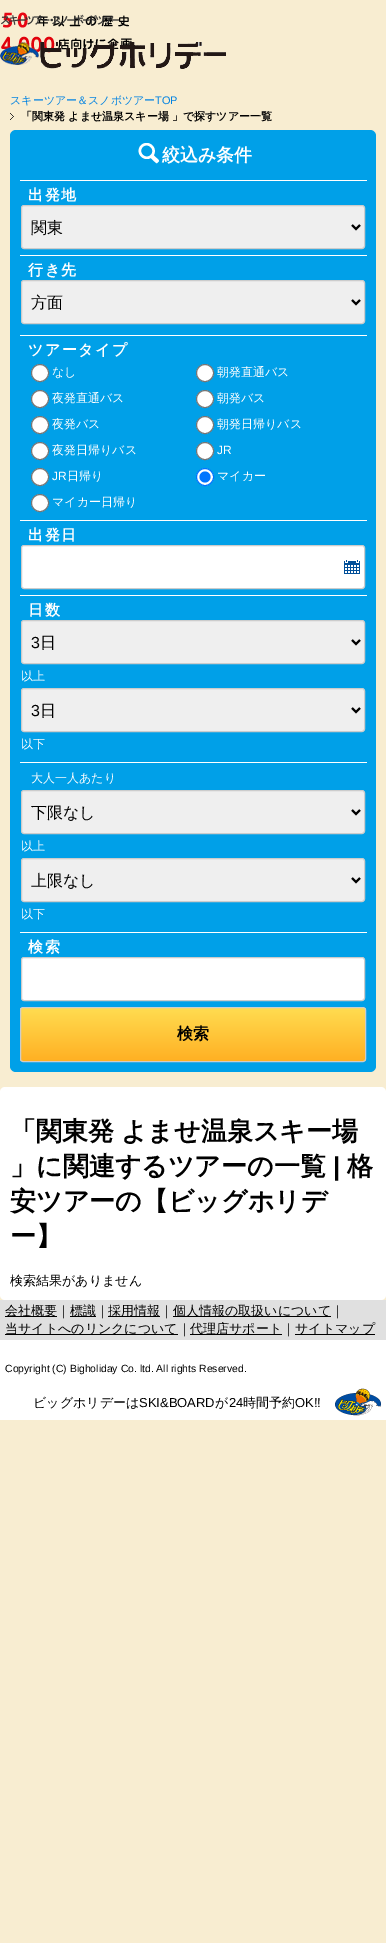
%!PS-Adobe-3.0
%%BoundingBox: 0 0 386 1943
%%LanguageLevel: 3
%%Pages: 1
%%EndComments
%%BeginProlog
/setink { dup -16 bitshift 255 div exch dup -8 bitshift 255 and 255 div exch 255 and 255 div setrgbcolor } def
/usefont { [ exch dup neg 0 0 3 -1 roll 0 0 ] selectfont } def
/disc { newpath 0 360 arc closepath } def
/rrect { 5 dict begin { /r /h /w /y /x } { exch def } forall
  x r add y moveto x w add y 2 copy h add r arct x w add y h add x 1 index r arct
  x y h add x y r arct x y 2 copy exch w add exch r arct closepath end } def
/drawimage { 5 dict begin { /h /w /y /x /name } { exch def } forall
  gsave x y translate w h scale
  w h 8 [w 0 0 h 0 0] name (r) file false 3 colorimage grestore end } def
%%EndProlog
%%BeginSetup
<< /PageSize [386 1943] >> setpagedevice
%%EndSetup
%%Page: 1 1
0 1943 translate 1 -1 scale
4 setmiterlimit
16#F8EDD1 setink
0 0 386 1943 rectfill
(img1.raw) 3 12 126 16 drawimage
(img2.raw) 1 36 131 17 drawimage
(img3.raw) 1 14 118 11 drawimage
(img4.raw) 0 42 226 27 drawimage
/WenQuanYiZenHei-Medium 11 usefont
16#0082E2 setink
10 104 moveto (スキーツアー＆スノボツアー) show
/LiberationSans-Regular 11 usefont
155 104 moveto (TOP) show
(img5.raw) 10 113 4 7 drawimage
/WenQuanYiZenHei-Bold 11 usefont
16#000000 setink
21 120 moveto (「関東発 よませ温泉スキー場 」で探すツアー一覧) show
16#00A0E8 setink
10 130 366 942 6 rrect fill
(img6.raw) 138 143 21 21 drawimage
/WenQuanYiZenHei-Bold 18 usefont
16#FFFFFF setink
162 161 moveto (絞込み条件) show
20 180 347 1 rectfill
/WenQuanYiZenHei-Bold 15 usefont
28 200 moveto 1.5 0 (出発地) ashow
16#EFEFEF setink
21.5 205.5 343 43 2.5 rrect gsave fill grestore
16#CCCCCC setink
stroke
16#000000 setink
2 setlinewidth
352 225 moveto 356 229 lineto 360 225 lineto stroke
/WenQuanYiZenHei-Medium 16 usefont
31 233 moveto (関東) show
16#FFFFFF setink
20 255 347 1 rectfill
/WenQuanYiZenHei-Bold 15 usefont
28 275 moveto 1.5 0 (行き先) ashow
16#EFEFEF setink
21.5 280.5 343 43 2.5 rrect gsave fill grestore
16#CCCCCC setink
1 setlinewidth
stroke
16#000000 setink
2 setlinewidth
352 300 moveto 356 304 lineto 360 300 lineto stroke
/WenQuanYiZenHei-Medium 16 usefont
31 308 moveto (方面) show
16#FFFFFF setink
20 335 347 1 rectfill
/WenQuanYiZenHei-Bold 15 usefont
28 355 moveto 1.5 0 (ツアータイプ) ashow
40 373 8.5 disc gsave fill grestore
16#767676 setink
1 setlinewidth
stroke
/WenQuanYiZenHei-Medium 12 usefont
16#FFFFFF setink
52 376 moveto (なし) show
205 373 8.5 disc gsave fill grestore
16#767676 setink
stroke
16#FFFFFF setink
217 376 moveto (朝発直通バス) show
40 399 8.5 disc gsave fill grestore
16#767676 setink
stroke
16#FFFFFF setink
52 402 moveto (夜発直通バス) show
205 399 8.5 disc gsave fill grestore
16#767676 setink
stroke
16#FFFFFF setink
217 402 moveto (朝発バス) show
40 425 8.5 disc gsave fill grestore
16#767676 setink
stroke
16#FFFFFF setink
52 428 moveto (夜発バス) show
205 425 8.5 disc gsave fill grestore
16#767676 setink
stroke
16#FFFFFF setink
217 428 moveto (朝発日帰りバス) show
40 451 8.5 disc gsave fill grestore
16#767676 setink
stroke
16#FFFFFF setink
52 454 moveto (夜発日帰りバス) show
205 451 8.5 disc gsave fill grestore
16#767676 setink
stroke
/LiberationSans-Regular 12 usefont
16#FFFFFF setink
217 454 moveto (JR) show
40 477 8.5 disc gsave fill grestore
16#767676 setink
stroke
16#FFFFFF setink
52 480 moveto (JR) show
/WenQuanYiZenHei-Medium 12 usefont
67 480 moveto (日帰り) show
205 477 8.5 disc gsave fill grestore
16#0075FF setink
stroke
205 477 5.5 disc fill
16#FFFFFF setink
217 480 moveto (マイカー) show
40 503 8.5 disc gsave fill grestore
16#767676 setink
stroke
16#FFFFFF setink
52 506 moveto (マイカー日帰り) show
20 520 347 1 rectfill
/WenQuanYiZenHei-Bold 15 usefont
28 540 moveto 1.5 0 (出発日) ashow
21.5 545.5 343 43 2.5 rrect gsave fill grestore
16#CCCCCC setink
stroke
(img7.raw) 344 560 16 14 drawimage
16#FFFFFF setink
20 595 347 1 rectfill
28 615 moveto 1.5 0 (日数) ashow
16#EFEFEF setink
21.5 620.5 343 43 2.5 rrect gsave fill grestore
16#CCCCCC setink
stroke
16#000000 setink
2 setlinewidth
352 640 moveto 356 644 lineto 360 640 lineto stroke
/LiberationSans-Regular 16 usefont
31 648 moveto (3) show
/WenQuanYiZenHei-Medium 16 usefont
40 648 moveto (日) show
/WenQuanYiZenHei-Medium 12 usefont
16#FFFFFF setink
21 680 moveto (以上) show
16#EFEFEF setink
21.5 688.5 343 43 2.5 rrect gsave fill grestore
16#CCCCCC setink
1 setlinewidth
stroke
16#000000 setink
2 setlinewidth
352 708 moveto 356 712 lineto 360 708 lineto stroke
/LiberationSans-Regular 16 usefont
31 716 moveto (3) show
/WenQuanYiZenHei-Medium 16 usefont
40 716 moveto (日) show
/WenQuanYiZenHei-Medium 12 usefont
16#FFFFFF setink
21 748 moveto (以下) show
20 762 347 1 rectfill
31 782 moveto (大人一人あたり) show
16#EFEFEF setink
21.5 790.5 343 43 2.5 rrect gsave fill grestore
16#CCCCCC setink
1 setlinewidth
stroke
16#000000 setink
2 setlinewidth
352 810 moveto 356 814 lineto 360 810 lineto stroke
/WenQuanYiZenHei-Medium 16 usefont
31 818 moveto (下限なし) show
/WenQuanYiZenHei-Medium 12 usefont
16#FFFFFF setink
21 850 moveto (以上) show
16#EFEFEF setink
21.5 858.5 343 43 2.5 rrect gsave fill grestore
16#CCCCCC setink
1 setlinewidth
stroke
16#000000 setink
2 setlinewidth
352 878 moveto 356 882 lineto 360 878 lineto stroke
/WenQuanYiZenHei-Medium 16 usefont
31 886 moveto (上限なし) show
/WenQuanYiZenHei-Medium 12 usefont
16#FFFFFF setink
21 918 moveto (以下) show
20 932 347 1 rectfill
/WenQuanYiZenHei-Bold 15 usefont
28 952 moveto 1.5 0 (検索) ashow
21.5 957.5 343 43 2.5 rrect gsave fill grestore
16#CCCCCC setink
1 setlinewidth
stroke
gsave
20 1007 346 55 3 rrect clip newpath
gsave 20 1008 moveto 366 1008 lineto 366 1061 lineto 20 1061 lineto closepath clip newpath
<< /ShadingType 2 /ColorSpace /DeviceRGB /Coords [193 1008 193 1061] /Extend [true true] /Function << /FunctionType 2 /Domain [0 1] /C0 [1 0.863 0.314] /C1 [1 0.69 0.137] /N 1 >> >> shfill grestore
grestore
20.5 1007.5 345 54 2.5 rrect stroke
/WenQuanYiZenHei-Bold 16 usefont
16#000000 setink
177 1039 moveto (検索) show
16#FFFFFF setink
0 1087 386 213 5 rrect fill
/WenQuanYiZenHei-Bold 26 usefont
16#000000 setink
10 1140 moveto -1 0 32 (「関東発 よませ温泉スキー場) widthshow
10 1175 moveto (」に関連するツアーの一覧) show
/LiberationSans-Bold 26 usefont
333 1175 moveto (|) show
/WenQuanYiZenHei-Bold 26 usefont
[
    [(格) 347 1175]
    [(安ツアーの【ビッグホリデ) 10 1210]
    [(ー】) 10 1245]
] { aload pop moveto show } forall
/WenQuanYiZenHei-Medium 13 usefont
10 1285 moveto (検索結果がありません) show
[
    [0 1340 386 80 16#FFFFFF]
    [0 1300 386 40 16#E0E0E0]
    [5 1316 52 1 16#000000]
] { aload pop setink rectfill } forall
5 1315 moveto (会社概要｜) show
70 1316 26 1 rectfill
70 1315 moveto (標識｜) show
108 1316 52 1 rectfill
108 1315 moveto (採用情報｜) show
173 1316 158 1 rectfill
173 1315 moveto (個人情報の取扱いについて｜) show
5 1334 173 1 rectfill
5 1333 moveto (当サイトへのリンクについて｜) show
190 1334 92 1 rectfill
190 1333 moveto (代理店サポート｜) show
295 1334 80 1 rectfill
295 1333 moveto (サイトマップ) show
/LiberationSans-Regular 10.4 usefont
5 1372 moveto (Copyright \(C\) Bigholiday Co. ltd. All rights Reserved.) show
(img8.raw) 335 1388 46 28 drawimage
/WenQuanYiZenHei-Medium 13 usefont
33 1407 moveto (ビッグホリデーは) show
/LiberationSans-Regular 13 usefont
139 1407 moveto (SKI&BOARD) show
/WenQuanYiZenHei-Medium 13 usefont
215 1407 moveto (が) show
/LiberationSans-Regular 13 usefont
229 1407 moveto (24) show
/WenQuanYiZenHei-Medium 13 usefont
243 1407 moveto (時間予約) show
/LiberationSans-Regular 13 usefont
295 1407 moveto (OK!!) show
showpage
%%EOF
